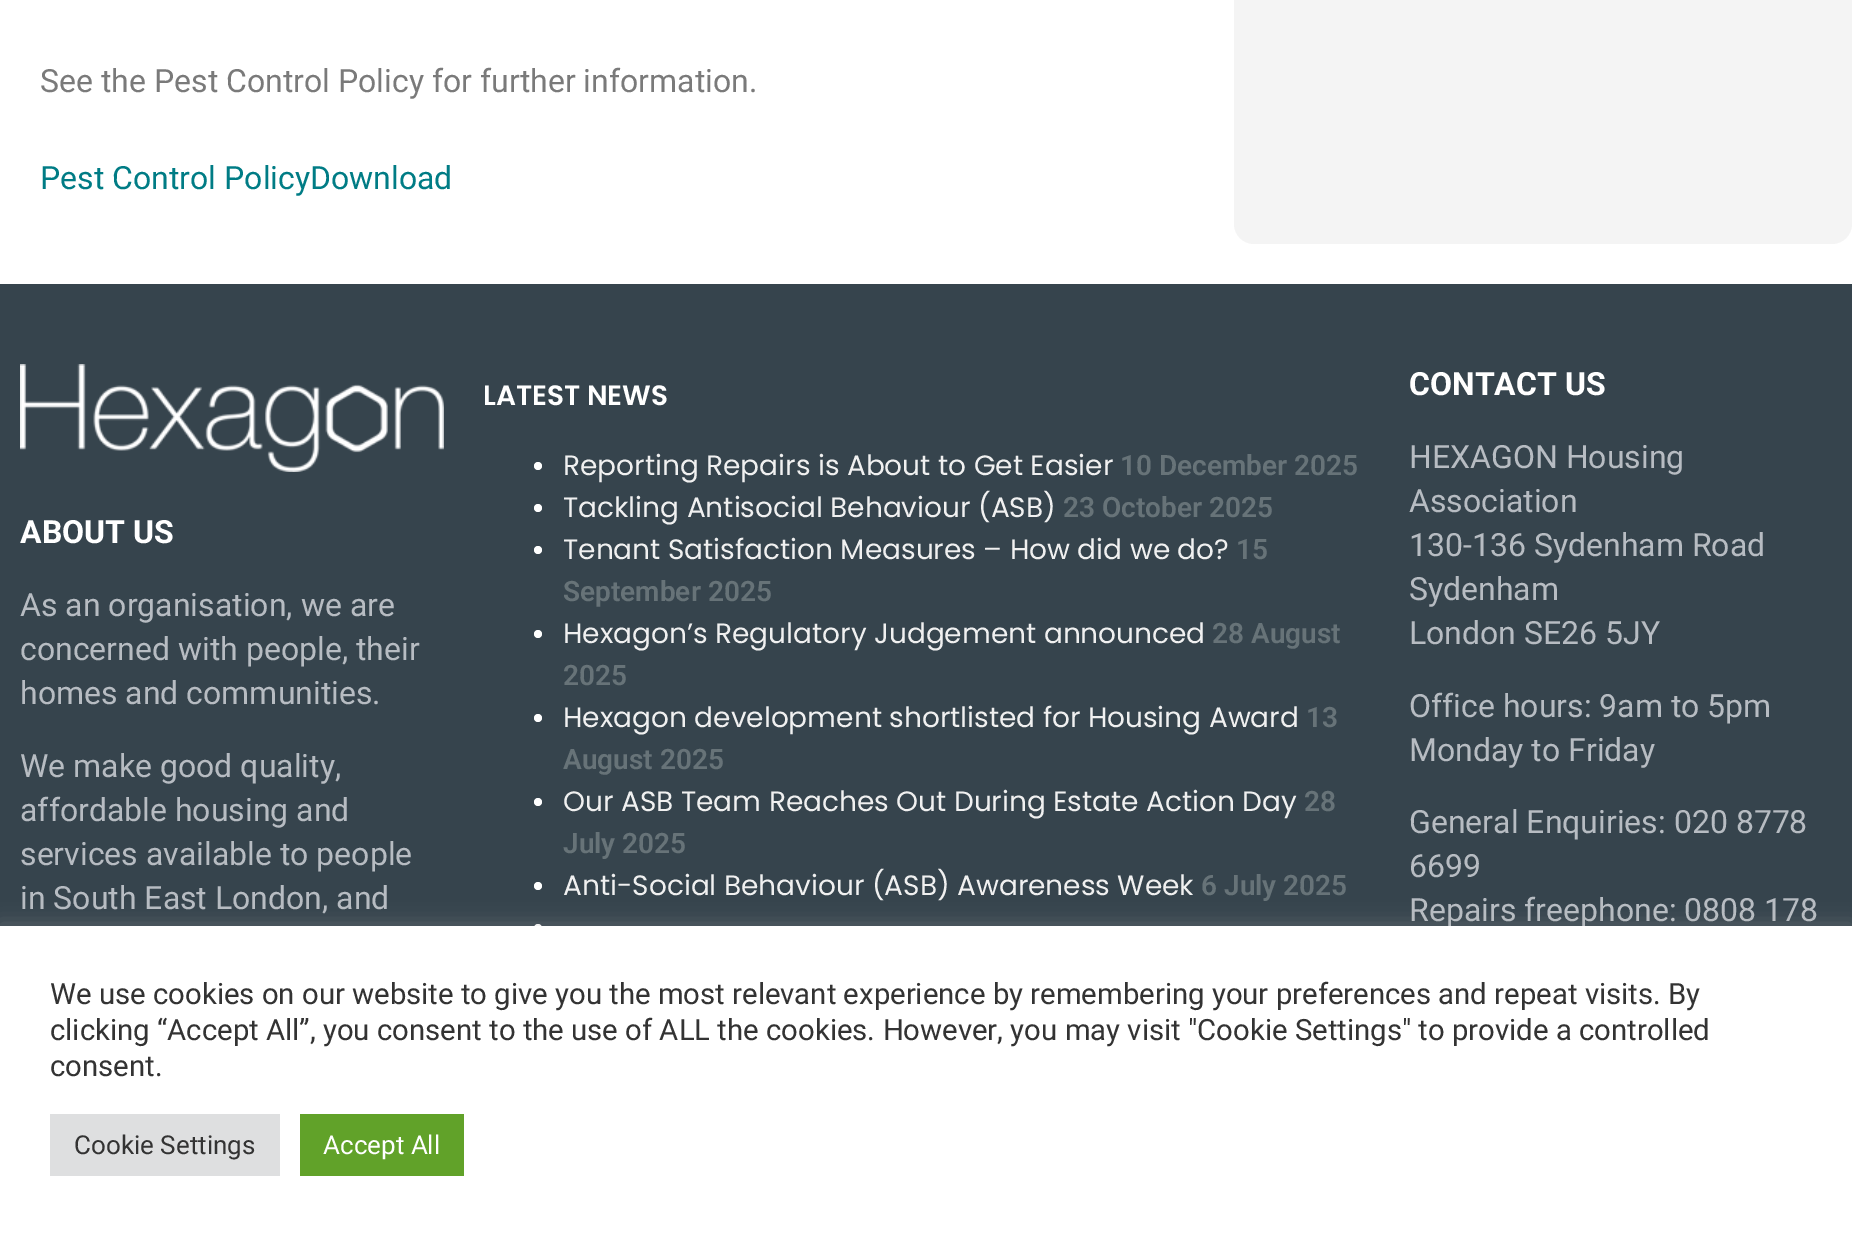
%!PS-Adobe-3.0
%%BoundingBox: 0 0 1852 1235
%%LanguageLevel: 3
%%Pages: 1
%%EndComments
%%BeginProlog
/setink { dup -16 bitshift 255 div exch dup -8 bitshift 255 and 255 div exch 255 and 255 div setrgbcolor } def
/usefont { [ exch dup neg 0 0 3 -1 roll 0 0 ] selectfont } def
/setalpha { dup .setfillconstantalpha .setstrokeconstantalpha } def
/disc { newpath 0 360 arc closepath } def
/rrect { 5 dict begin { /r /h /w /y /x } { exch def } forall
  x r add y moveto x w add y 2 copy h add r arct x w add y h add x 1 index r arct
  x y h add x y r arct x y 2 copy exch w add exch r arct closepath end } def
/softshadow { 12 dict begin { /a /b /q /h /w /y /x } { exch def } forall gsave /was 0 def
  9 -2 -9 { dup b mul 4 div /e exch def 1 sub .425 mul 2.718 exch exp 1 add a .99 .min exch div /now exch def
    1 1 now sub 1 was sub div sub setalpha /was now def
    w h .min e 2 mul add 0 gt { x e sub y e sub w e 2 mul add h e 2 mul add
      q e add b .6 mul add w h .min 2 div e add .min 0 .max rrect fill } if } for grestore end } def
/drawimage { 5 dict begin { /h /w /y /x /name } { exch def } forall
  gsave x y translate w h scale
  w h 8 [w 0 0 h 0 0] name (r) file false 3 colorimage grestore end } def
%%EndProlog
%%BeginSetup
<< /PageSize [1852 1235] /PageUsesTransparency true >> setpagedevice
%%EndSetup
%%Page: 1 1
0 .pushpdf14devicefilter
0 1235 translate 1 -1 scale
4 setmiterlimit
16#FFFFFF setink
0 0 1852 1235 rectfill
/Roboto-Regular 32 usefont
16#7A7A7A setink
40 92 moveto (See the Pest Control Policy for further information.) show
16#007C85 setink
40 189 moveto (Pest Control PolicyDownload) show
16#F4F4F4 setink
1234 -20 618 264 20 rrect fill
16#36444D setink
0 284 1852 642 rectfill
(img1.raw) 20 364 424 108 drawimage
/Roboto-Bold 32 usefont
16#FFFFFF setink
20 543 moveto (ABOUT US) show
/Roboto-Regular 32 usefont
16#B7BCC2 setink
[
    [(As an organisation, we are) 20 616]
    [(concerned with people, their) 20 660]
    [(homes and communities.) 20 704]
    [(We make good quality,) 20 777]
    [(affordable housing and) 20 821]
    [(services available to people) 20 865]
    [(in South East London, and) 20 909]
] { aload pop moveto show } forall
/Poppins-SemiBold 28 usefont
16#FFFFFF setink
483 405 moveto (LATEST NEWS) show
538 466 4 disc fill
/Poppins-Regular 28 usefont
16#F0F0F0 setink
563 475 moveto (Reporting Repairs is About to Get Easier) show
/Roboto-SemiBold 28 usefont
16#677378 setink
1120 475 moveto (10 December 2025) show
16#FFFFFF setink
538 508 4 disc fill
/Poppins-Regular 28 usefont
16#F0F0F0 setink
563 517 moveto (Tackling Antisocial Behaviour \(ASB\)) show
/Roboto-SemiBold 28 usefont
16#677378 setink
1063 517 moveto (23 October 2025) show
16#FFFFFF setink
538 550 4 disc fill
/Poppins-Regular 28 usefont
16#F0F0F0 setink
563 559 moveto (Tenant Satisfaction Measures – How did we do?) show
/Roboto-SemiBold 28 usefont
16#677378 setink
1236 559 moveto (15) show
563 601 moveto (September 2025) show
16#FFFFFF setink
538 634 4 disc fill
/Poppins-Regular 28 usefont
16#F0F0F0 setink
563 643 moveto (Hexagon’s Regulatory Judgement announced) show
/Roboto-SemiBold 28 usefont
16#677378 setink
1212 643 moveto (28 August) show
563 685 moveto (2025) show
16#FFFFFF setink
538 718 4 disc fill
/Poppins-Regular 28 usefont
16#F0F0F0 setink
563 727 moveto (Hexagon development shortlisted for Housing Award) show
/Roboto-SemiBold 28 usefont
16#677378 setink
1306 727 moveto (13) show
563 769 moveto (August 2025) show
16#FFFFFF setink
538 802 4 disc fill
/Poppins-Regular 28 usefont
16#F0F0F0 setink
563 811 moveto (Our ASB Team Reaches Out During Estate Action Day) show
/Roboto-SemiBold 28 usefont
16#677378 setink
1304 811 moveto (28) show
563 853 moveto (July 2025) show
16#FFFFFF setink
538 886 4 disc fill
/Poppins-Regular 28 usefont
16#F0F0F0 setink
563 895 moveto (Anti-Social Behaviour \(ASB\) Awareness Week) show
/Roboto-SemiBold 28 usefont
16#677378 setink
1201 895 moveto (6 July 2025) show
16#FFFFFF setink
538 928 4 disc fill
/Roboto-Bold 32 usefont
1409 395 moveto (CONTACT US) show
/Roboto-Regular 32 usefont
16#B7BCC2 setink
[
    [(HEXAGON Housing) 1409 468]
    [(Association) 1409 512]
    [(130-136 Sydenham Road) 1409 556]
    [(Sydenham) 1409 600]
    [(London SE26 5JY) 1409 644]
    [(Office hours: 9am to 5pm) 1409 717]
    [(Monday to Friday) 1409 761]
    [(General Enquiries: 020 8778) 1409 833]
    [(6699) 1409 877]
    [(Repairs freephone: 0808 178) 1409 921]
] { aload pop moveto show } forall
16#ACABAB setink
0 924 1852 310 0 10 0.3 softshadow
16#FFFFFF setink
0 926 1852 309 rectfill
/Roboto-Regular 29.33 usefont
16#333333 setink
[
    [(We use cookies on our website to give you the most relevant experience by remembering your preferences and repeat visits. By) 50 1004]
    [(clicking “Accept All”, you consent to the use of ALL the cookies. However, you may visit "Cookie Settings" to provide a controlled) 50 1040]
    [(consent.) 50 1076]
] { aload pop moveto show } forall
16#DEDFE0 setink
50 1114 230 62 rectfill
/Roboto-Regular 26 usefont
16#333333 setink
74 1154 moveto (Cookie Settings) show
16#61A229 setink
300 1114 164 62 rectfill
16#FFFFFF setink
323 1154 moveto (Accept All) show
.poppdf14devicefilter showpage
%%EOF
